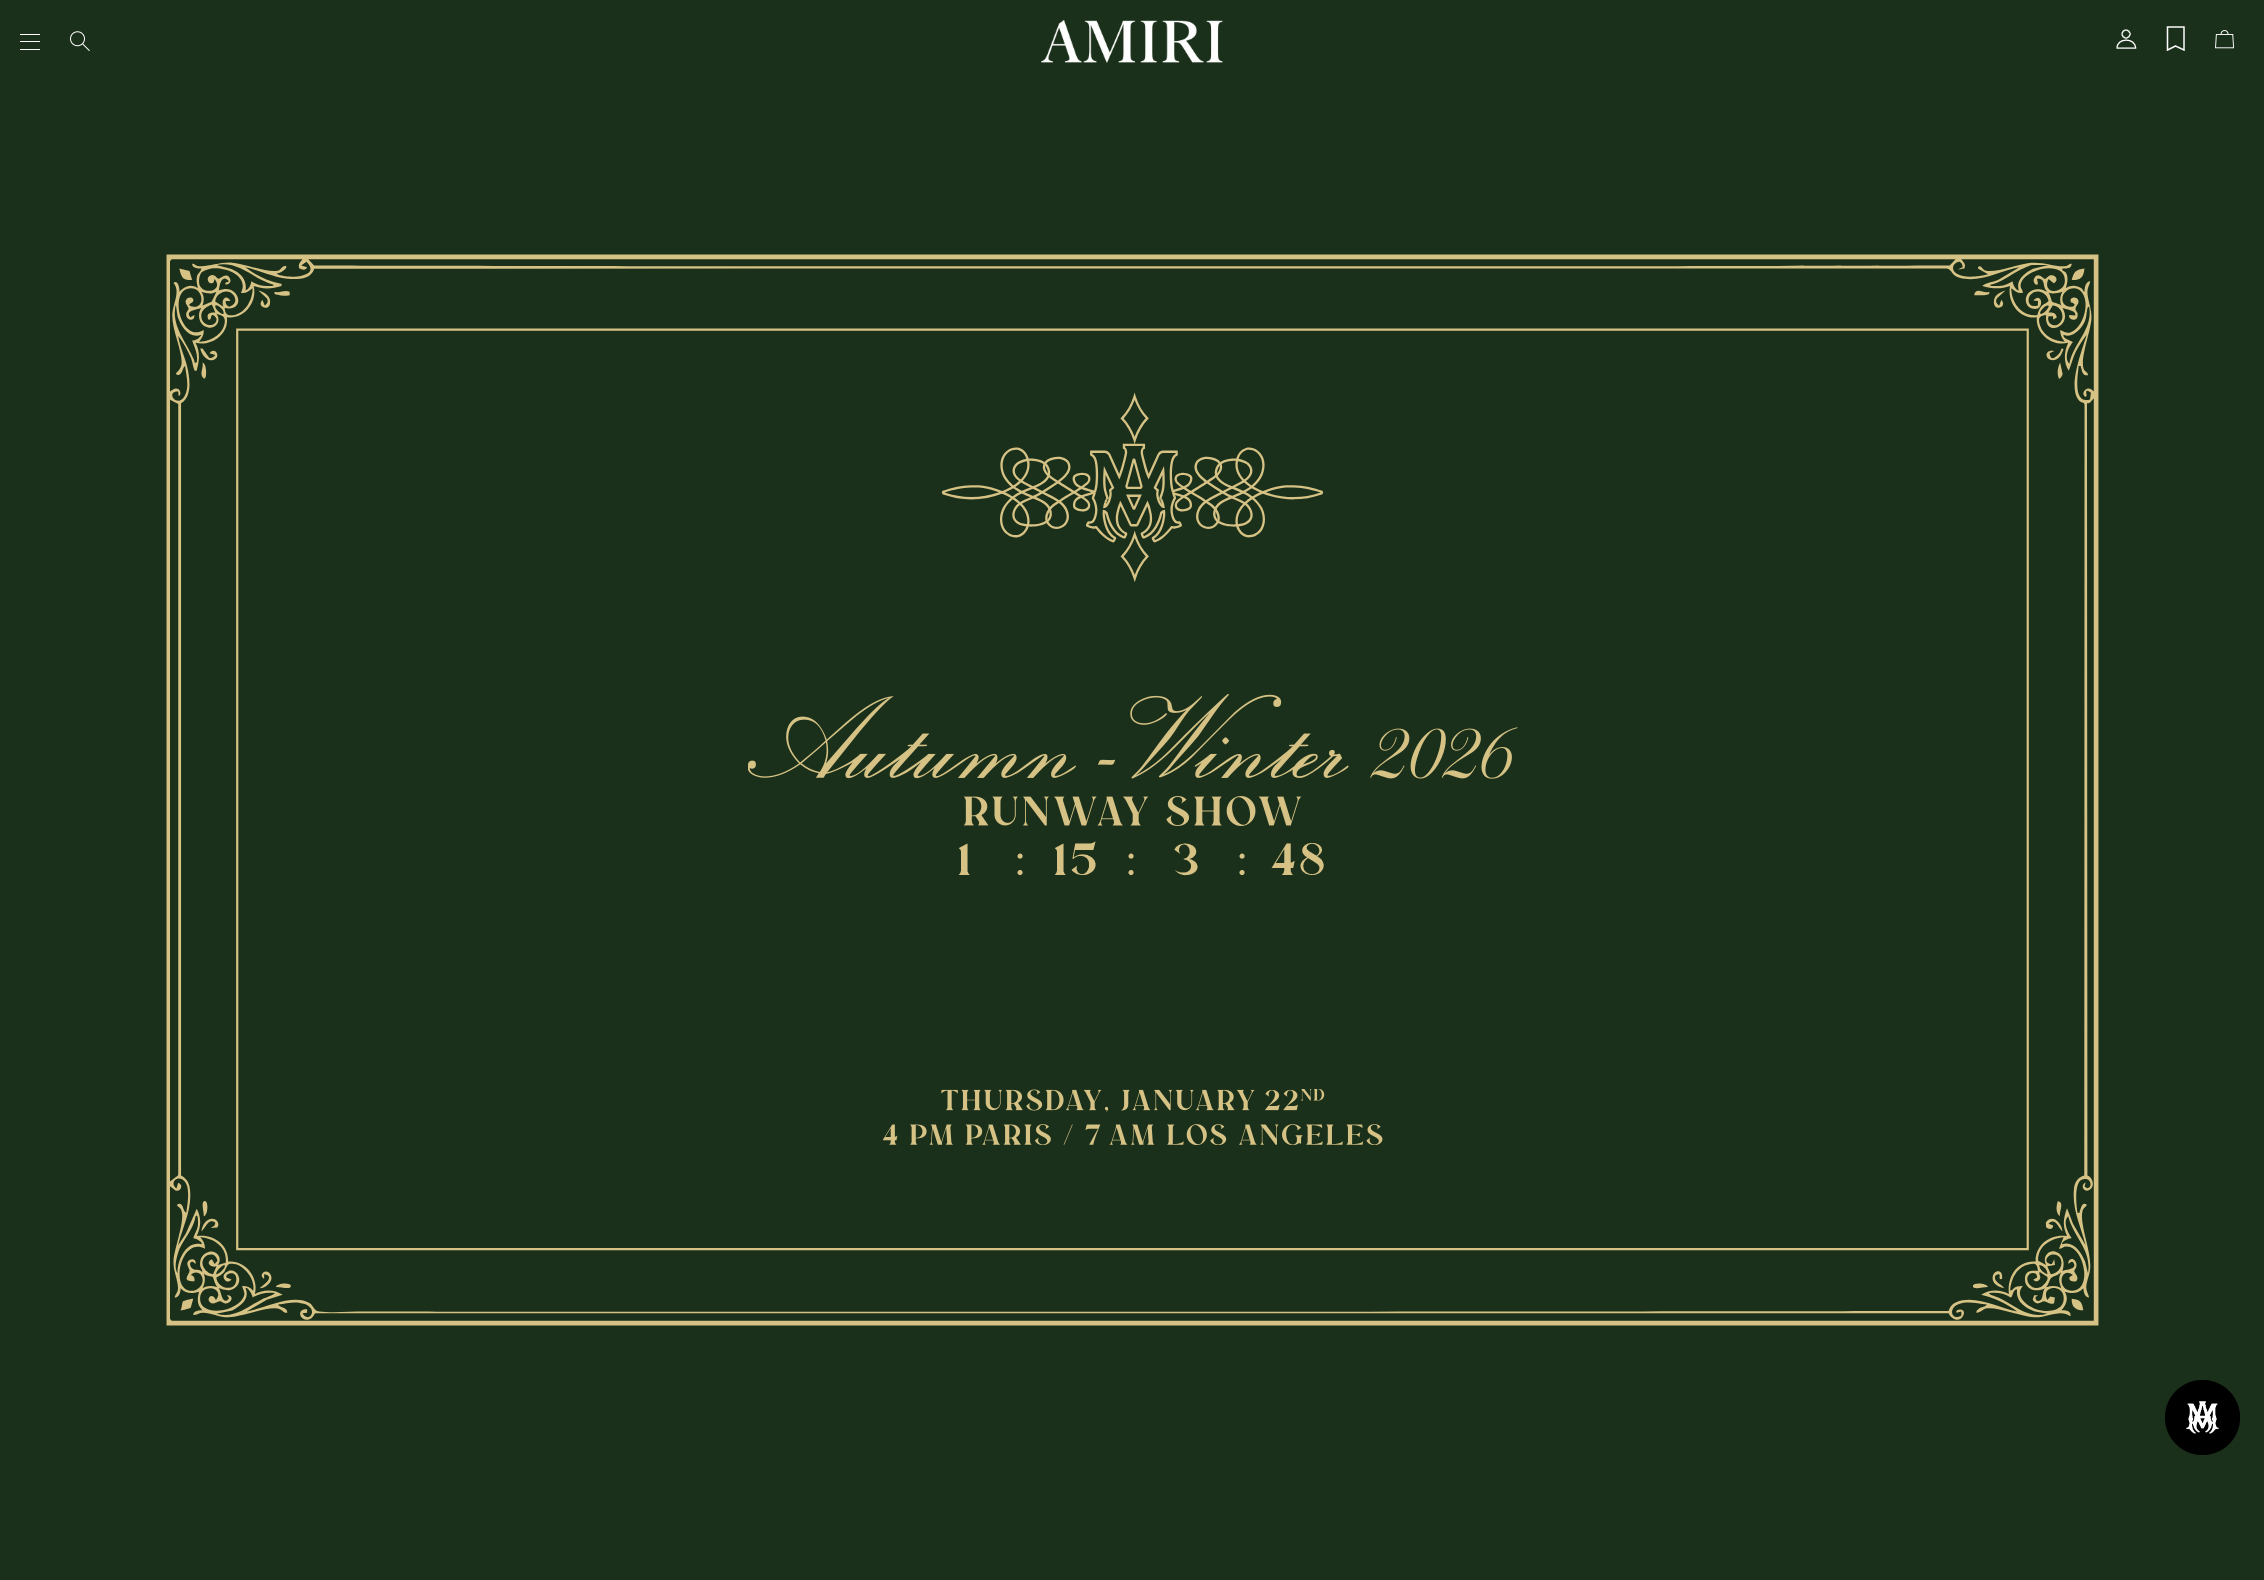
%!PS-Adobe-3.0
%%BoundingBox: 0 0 2264 1580
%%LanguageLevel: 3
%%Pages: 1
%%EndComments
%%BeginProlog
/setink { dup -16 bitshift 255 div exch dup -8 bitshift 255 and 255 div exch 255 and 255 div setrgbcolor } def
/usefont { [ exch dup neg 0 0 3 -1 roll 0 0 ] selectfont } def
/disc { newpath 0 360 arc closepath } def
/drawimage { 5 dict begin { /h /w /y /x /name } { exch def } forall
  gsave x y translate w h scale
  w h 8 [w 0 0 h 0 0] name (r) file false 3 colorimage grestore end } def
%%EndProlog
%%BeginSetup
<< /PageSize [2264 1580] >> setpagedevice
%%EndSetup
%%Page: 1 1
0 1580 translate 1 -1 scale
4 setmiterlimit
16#FFFFFF setink
0 0 2264 1580 rectfill
(img4.raw) 0 0 2264 1580 drawimage
[
    [20 34 20 1 16#FFFFFF]
    [20 41 20 1 16#FFFFFF]
    [20 49 20 1 16#FFFFFF]
] { aload pop setink rectfill } forall
(img1.raw) 70 31 20 20 drawimage
(img2.raw) 1041 20 182 43 drawimage
2126 34 4 disc stroke
2135.5 48 moveto 2135.5 37.5 2117 37.5 2117 48 curveto closepath stroke
1.2 setlinewidth
2175.5 46 moveto 2167.5 50 lineto 2167.5 27 lineto 2184 27 lineto 2184 50 lineto closepath stroke
(img3.raw) 2215 30 20 19 drawimage
(img5.raw) 748 694 770 132 drawimage
/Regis-SemiBold 45 usefont
16#D5C284 setink
957 875 moveto 3 0 (1) ashow
1016 875 moveto 3 0 (:) ashow
1053 875 moveto 3 0 (15) ashow
1127 875 moveto 3 0 (:) ashow
1173 875 moveto 3 0 (3) ashow
1238 875 moveto 3 0 (:) ashow
1270 875 moveto 3 0 (48) ashow
(img6.raw) 883 1089 500 56 drawimage
16#000000 setink
2202.5 1417.5 37.5 disc fill
(img7.raw) 2186 1401 33 33 drawimage
showpage
%%EOF
